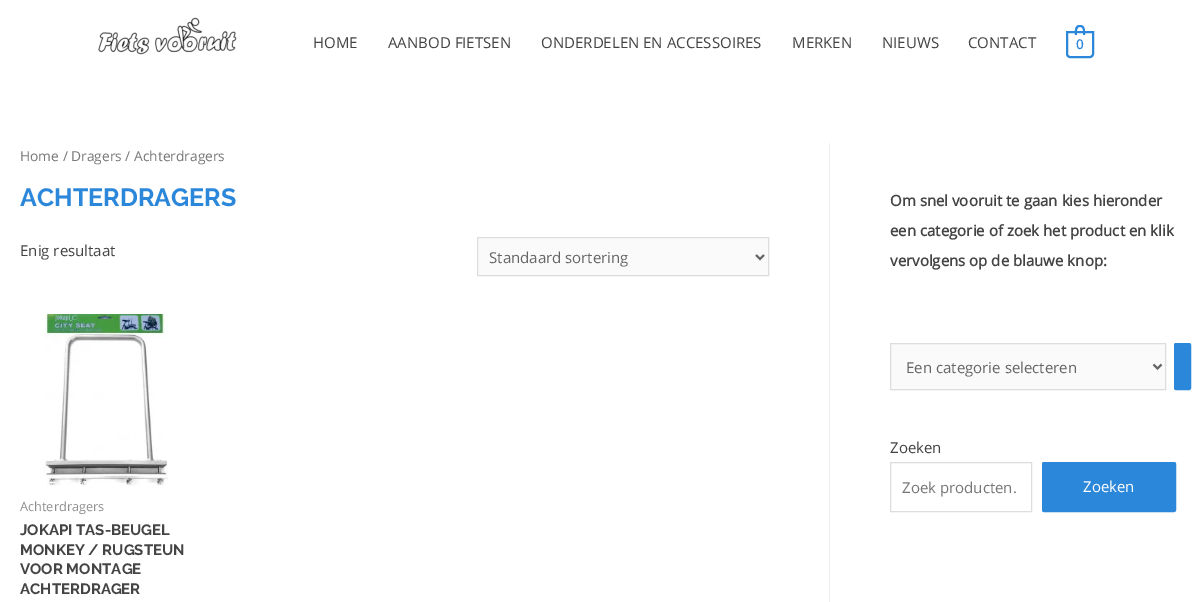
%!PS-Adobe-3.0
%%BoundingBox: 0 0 1197 602
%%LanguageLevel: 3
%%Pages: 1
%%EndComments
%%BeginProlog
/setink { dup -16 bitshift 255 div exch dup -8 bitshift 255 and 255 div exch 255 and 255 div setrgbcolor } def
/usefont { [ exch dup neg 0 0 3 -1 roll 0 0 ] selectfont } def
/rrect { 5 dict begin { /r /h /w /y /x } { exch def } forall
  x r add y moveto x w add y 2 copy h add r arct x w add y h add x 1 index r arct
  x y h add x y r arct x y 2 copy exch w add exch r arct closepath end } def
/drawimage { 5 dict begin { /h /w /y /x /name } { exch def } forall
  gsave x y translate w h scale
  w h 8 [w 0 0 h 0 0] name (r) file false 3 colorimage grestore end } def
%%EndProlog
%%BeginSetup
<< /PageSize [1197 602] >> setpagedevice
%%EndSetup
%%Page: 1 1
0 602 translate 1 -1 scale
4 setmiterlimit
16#FFFFFF setink
0 0 1197 602 rectfill
(img1.raw) 98 17 139 38 drawimage
/OpenSans-Regular 15 usefont
16#444444 setink
[
    [(HOME) 313 48]
    [(AANBOD FIETSEN) 388 48]
    [(ONDERDELEN EN ACCESSOIRES) 541 48]
    [(MERKEN) 792 48]
    [(NIEUWS) 882 48]
    [(CONTACT) 968 48]
] { aload pop moveto show } forall
16#2B87DA setink
2 setlinewidth
1067 32 moveto 1093 32 lineto 1093 54 lineto 1093 55.5 1091.5 57 1090 57 curveto 1070 57 lineto 1068.5 57 1067 55.5 1067 54 curveto closepath stroke
1080 25 moveto 1085.5 25 1085 31 1085 35 curveto 1075 35 lineto 1075 31 1074 25 1080 25 curveto closepath 1080 27 moveto 1084 27 1083 32.5 1083 35 curveto 1077 35 lineto 1077 32.5 1076 27 1080 27 curveto closepath eofill
/OpenSans-Bold 13 usefont
1076 49 moveto (0) show
16#EEEEEE setink
829 143 1 459 rectfill
/OpenSans-Regular 13.75 usefont
16#777777 setink
20 161 moveto (Home / Dragers / Achterdragers) show
/Raleway-Thin 25 usefont
16#2B87DA setink
20 206 moveto (ACHTERDRAGERS) show
/OpenSans-Regular 15 usefont
16#444444 setink
20 256 moveto (Enig resultaat) show
16#FAFAFA setink
477.5 237.5 moveto 768.5 237.5 lineto 768.5 275.5 lineto 477.5 275.5 lineto closepath gsave fill grestore
16#DDDDDD setink
1 setlinewidth
stroke
16#666666 setink
2 setlinewidth
756 255 moveto 760 259 lineto 764 255 lineto stroke
489 263 moveto (Standaard sortering) show
(img2.raw) 44 314 124 172 drawimage
/OpenSans-Regular 12.75 usefont
16#8F8F8F setink
20 511 moveto (Achterdragers) show
/Raleway-Thin 15 usefont
16#444444 setink
[
    [(JOKAPI TAS-BEUGEL) 20 535]
    [(MONKEY / RUGSTEUN) 20 555]
    [(VOOR MONTAGE) 20 574]
    [(ACHTERDRAGER) 20 594]
] { aload pop moveto show } forall
/OpenSans-Bold 15 usefont
[
    [(Om snel vooruit te gaan kies hieronder) 890 206]
    [(een categorie of zoek het product en klik) 890 236]
    [(vervolgens op de blauwe knop:) 890 266]
] { aload pop moveto show } forall
16#FAFAFA setink
890.5 343.5 moveto 1165.5 343.5 lineto 1165.5 389.5 lineto 890.5 389.5 lineto closepath gsave fill grestore
16#DDDDDD setink
1 setlinewidth
stroke
16#666666 setink
2 setlinewidth
1153.5 364.5 moveto 1157.5 368.5 lineto 1161.5 364.5 lineto stroke
/OpenSans-Regular 15 usefont
906 373 moveto (Een categorie selecteren) show
16#2B87DA setink
1174.5 343.5 16 46 1.5 rrect gsave fill grestore
1 setlinewidth
stroke
16#444444 setink
890 453 moveto (Zoeken) show
16#DDDDDD setink
890.5 462.5 141 49 rectstroke
16#777777 setink
902 493 moveto (Zoek producten.) show
16#2B87DA setink
1042.5 462.5 133 49 1.5 rrect gsave fill grestore
stroke
16#FFFFFF setink
1083 492 moveto (Zoeken) show
showpage
%%EOF
